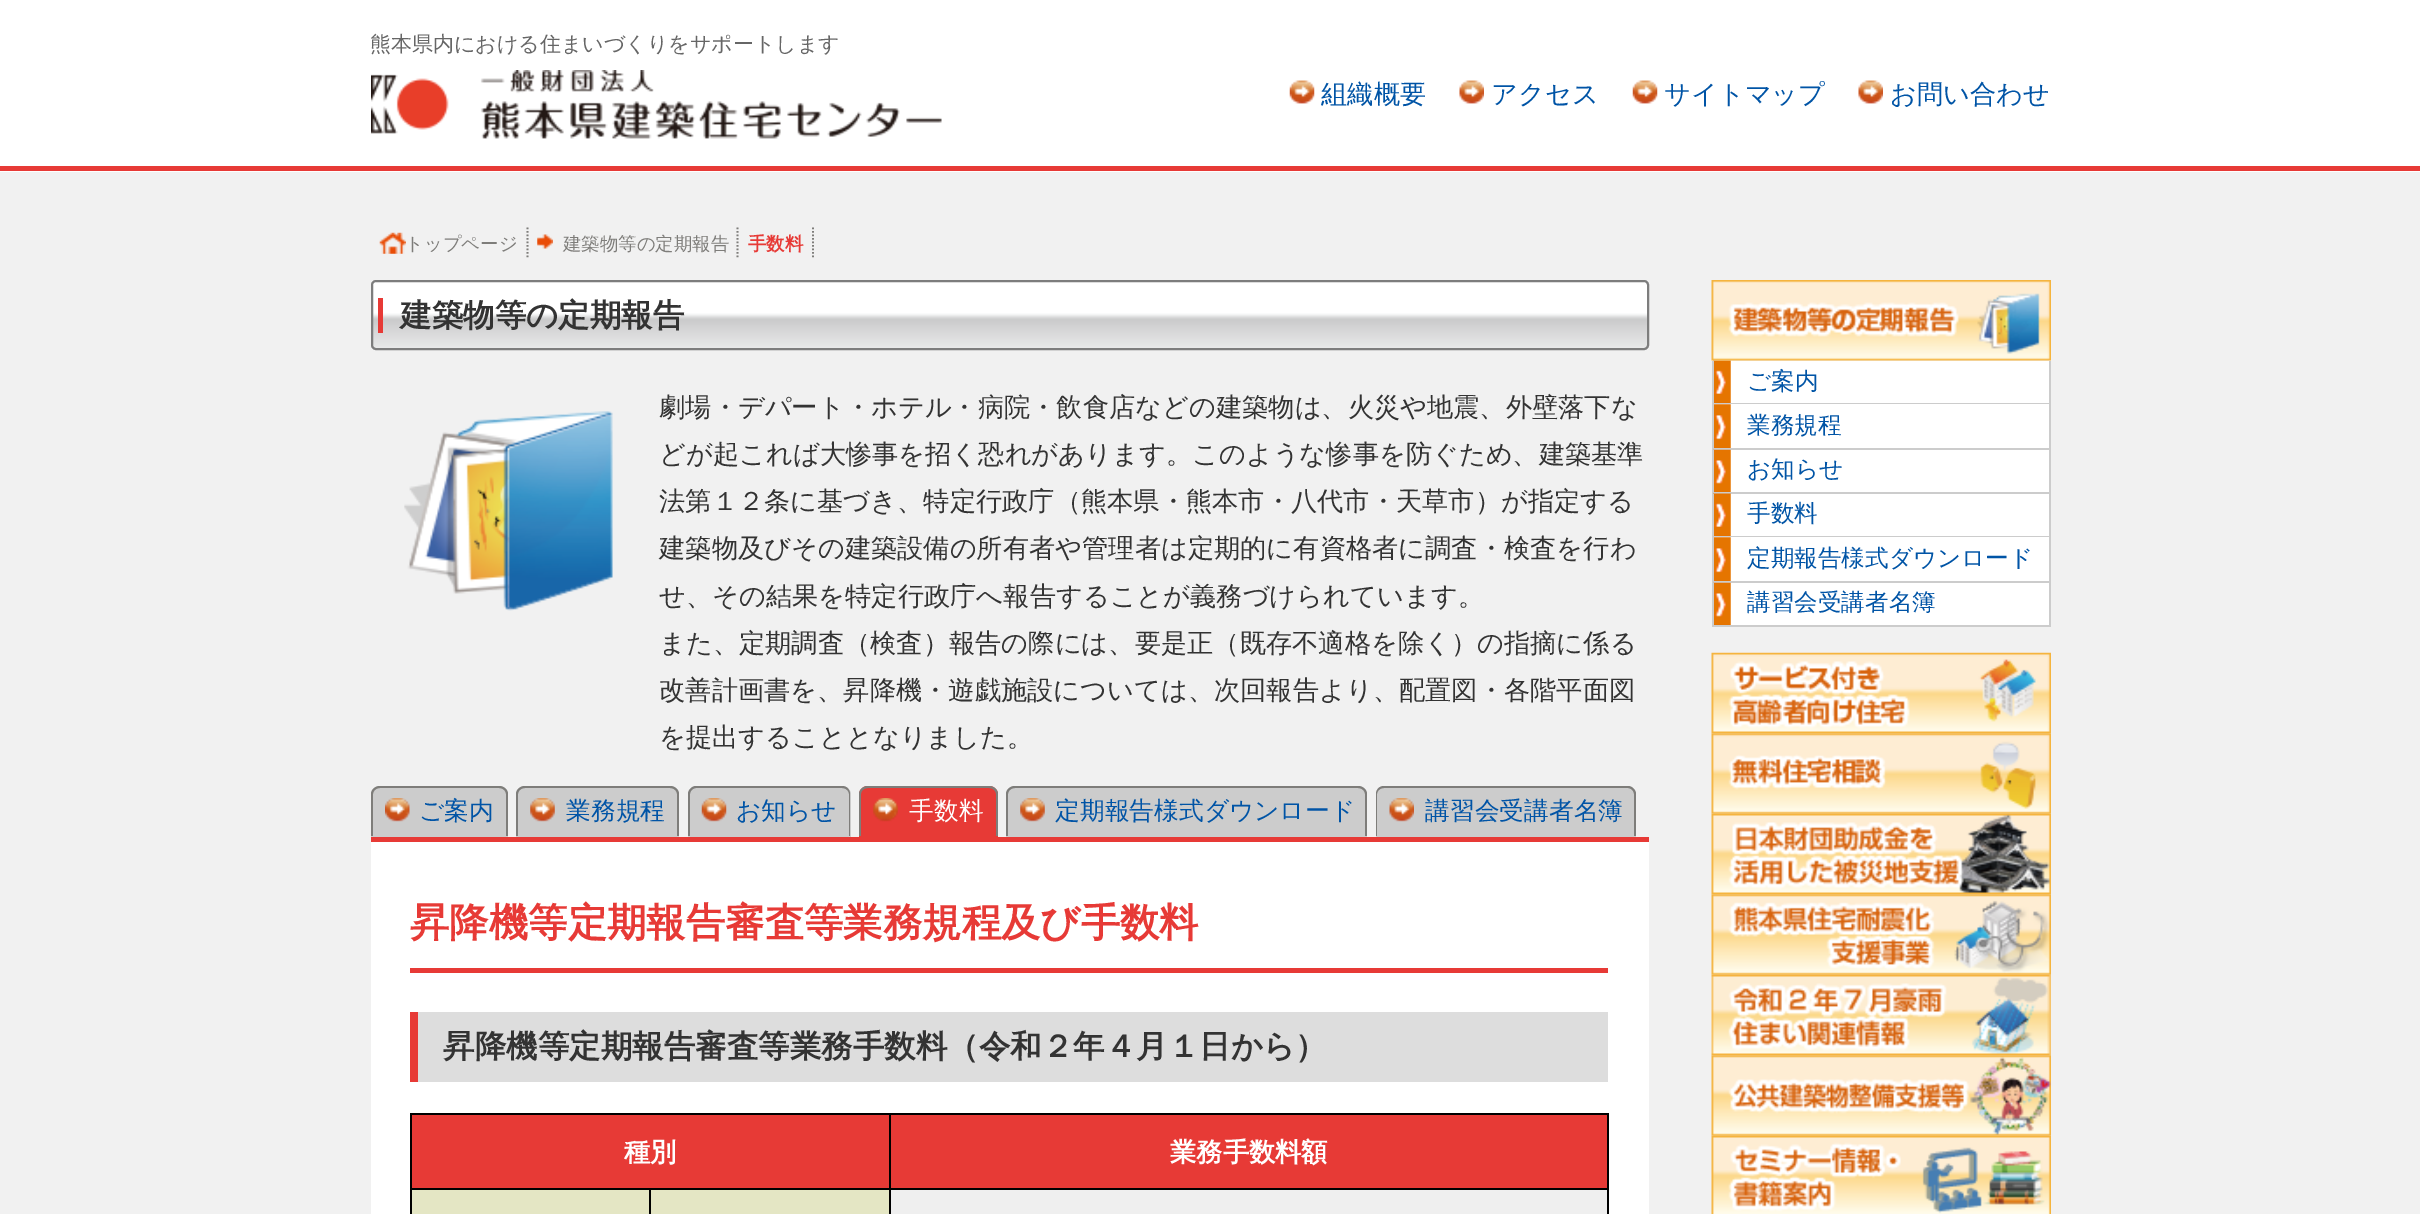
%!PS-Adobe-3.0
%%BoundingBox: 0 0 2420 1214
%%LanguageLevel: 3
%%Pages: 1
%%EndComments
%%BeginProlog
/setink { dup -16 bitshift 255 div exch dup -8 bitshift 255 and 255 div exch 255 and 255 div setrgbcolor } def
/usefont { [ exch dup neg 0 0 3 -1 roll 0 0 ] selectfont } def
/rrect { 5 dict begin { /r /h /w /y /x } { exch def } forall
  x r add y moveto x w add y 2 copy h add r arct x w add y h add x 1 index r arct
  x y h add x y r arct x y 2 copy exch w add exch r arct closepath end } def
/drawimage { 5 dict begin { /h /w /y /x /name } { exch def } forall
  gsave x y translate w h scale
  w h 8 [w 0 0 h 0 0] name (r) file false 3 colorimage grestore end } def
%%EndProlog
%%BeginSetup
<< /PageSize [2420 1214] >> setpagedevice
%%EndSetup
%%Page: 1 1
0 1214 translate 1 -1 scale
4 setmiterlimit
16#F1F1F1 setink
0 0 2420 1214 rectfill
16#FFFFFF setink
0 0 2420 172 rectfill
16#E73A36 setink
0 166 2420 5 rectfill
/WenQuanYiZenHei-Medium 21 usefont
16#666666 setink
370 51 moveto (熊本県内における住まいづくりをサポートします) show
(img1.raw) 371 70 571 69 drawimage
(img2.raw) 1289 80 26 24 drawimage
/WenQuanYiZenHei-Medium 26.25 usefont
16#0054A6 setink
1321 103 moveto (組織概要) show
(img3.raw) 1459 80 25 24 drawimage
1491 103 moveto (アクセス) show
(img2.raw) 1632 80 26 24 drawimage
1664 103 moveto (サイトマップ) show
(img3.raw) 1858 80 25 24 drawimage
1890 103 moveto (お問い合わせ) show
16#7E7D7A setink
1.8 setlinewidth
[1.75 1.75] 0 setdash
527.5 227.5 moveto 527.5 259 lineto stroke
(img4.raw) 379 232 27 22 drawimage
/WenQuanYiZenHei-Medium 18.4 usefont
405 250 moveto (トップページ) show
737.5 227.5 moveto 737.5 259 lineto stroke
(img5.raw) 537 234 16 15 drawimage
563 250 moveto (建築物等の定期報告) show
813 227.5 moveto 813 259 lineto stroke
/WenQuanYiZenHei-Bold 18.4 usefont
16#E73A36 setink
748 250 moveto (手数料) show
(img6.raw) 371 280 1278 70 drawimage
16#7D7D7D setink
2 setlinewidth
[] 0 setdash
372 281 1276 68 4 rrect stroke
/WenQuanYiZenHei-Bold 31.5 usefont
16#333333 setink
400 326 moveto (建築物等の定期報告) show
16#E73A36 setink
378 298 5 35 rectfill
/WenQuanYiZenHei-Medium 26.25 usefont
16#333333 setink
659 416 moveto (劇場・デパート・ホテル・病院・飲食店などの建築物は、火災や地震、外壁落下な) show
(img7.raw) 404 411 209 200 drawimage
[
    [(どが起これば大惨事を招く恐れがあります。このような惨事を防ぐため、建築基準) 659 463]
    [(法第１２条に基づき、特定行政庁（熊本県・熊本市・八代市・天草市）が指定する) 659 510]
    [(建築物及びその建築設備の所有者や管理者は定期的に有資格者に調査・検査を行わ) 659 557]
    [(せ、その結果を特定行政庁へ報告することが義務づけられています。) 659 605]
    [(また、定期調査（検査）報告の際には、要是正（既存不適格を除く）の指摘に係る) 659 652]
    [(改善計画書を、昇降機・遊戯施設については、次回報告より、配置図・各階平面図) 659 699]
    [(を提出することとなりました。) 659 746]
] { aload pop moveto show } forall
16#E73A36 setink
371 837 1278 5 rectfill
16#CCCCCC setink
380 786 moveto 499 786 lineto 504 786 508 790 508 795 curveto 508 837 lineto 371 837 lineto 371 795 lineto 371 790 375 786 380 786 curveto closepath fill
16#7E7D7A setink
380 786 moveto 499 786 lineto 504 786 508 790 508 794 curveto 508 836 lineto 371 836 lineto 371 794 lineto 371 790 375 786 380 786 curveto closepath 380 788 moveto 499 788 lineto 503 788 506 791 506 794 curveto 506 836 lineto 373 836 lineto 373 794 lineto 373 791 376 788 380 788 curveto closepath eofill
(img8.raw) 385 798 25 24 drawimage
/WenQuanYiZenHei-Medium 24.75 usefont
16#0054A6 setink
419 819 moveto (ご案内) show
16#CCCCCC setink
525 786 moveto 670 786 lineto 675 786 679 790 679 795 curveto 679 837 lineto 516 837 lineto 516 795 lineto 516 790 520 786 525 786 curveto closepath fill
16#7E7D7A setink
525 786 moveto 670 786 lineto 675 786 679 790 679 794 curveto 679 836 lineto 516 836 lineto 516 794 lineto 516 790 520 786 525 786 curveto closepath 525 788 moveto 670 788 lineto 674 788 677 791 677 794 curveto 677 836 lineto 518 836 lineto 518 794 lineto 518 791 521 788 525 788 curveto closepath eofill
(img9.raw) 530 798 25 24 drawimage
16#0054A6 setink
566 819 moveto (業務規程) show
16#CCCCCC setink
697 786 moveto 842 786 lineto 847 786 851 790 851 795 curveto 851 837 lineto 688 837 lineto 688 795 lineto 688 790 692 786 697 786 curveto closepath fill
16#7E7D7A setink
696 786 moveto 842 786 lineto 847 786 850 790 850 794 curveto 850 836 lineto 688 836 lineto 688 794 lineto 688 790 692 786 696 786 curveto closepath 696 788 moveto 842 788 lineto 846 788 849 791 849 794 curveto 849 836 lineto 690 836 lineto 690 794 lineto 690 791 693 788 696 788 curveto closepath eofill
(img10.raw) 701 798 26 24 drawimage
16#0054A6 setink
736 819 moveto (お知らせ) show
16#E73A36 setink
868 786 moveto 989 786 lineto 994 786 998 790 998 795 curveto 998 837 lineto 859 837 lineto 859 795 lineto 859 790 863 786 868 786 curveto closepath fill
16#7E7D7A setink
868 786 moveto 989 786 lineto 994 786 998 790 998 794 curveto 998 836 lineto 859 836 lineto 859 794 lineto 859 790 863 786 868 786 curveto closepath 868 788 moveto 989 788 lineto 993 788 996 791 996 794 curveto 996 836 lineto 861 836 lineto 861 794 lineto 861 791 864 788 868 788 curveto closepath eofill
(img11.raw) 873 798 25 24 drawimage
16#FFFFFF setink
909 819 moveto (手数料) show
16#CCCCCC setink
1015 786 moveto 1358 786 lineto 1363 786 1367 790 1367 795 curveto 1367 837 lineto 1006 837 lineto 1006 795 lineto 1006 790 1010 786 1015 786 curveto closepath fill
16#7E7D7A setink
1015 786 moveto 1358 786 lineto 1363 786 1367 790 1367 794 curveto 1367 836 lineto 1006 836 lineto 1006 794 lineto 1006 790 1010 786 1015 786 curveto closepath 1015 788 moveto 1358 788 lineto 1362 788 1365 791 1365 794 curveto 1365 836 lineto 1008 836 lineto 1008 794 lineto 1008 791 1011 788 1015 788 curveto closepath eofill
(img9.raw) 1020 798 25 24 drawimage
16#0054A6 setink
1055 819 moveto (定期報告様式ダウンロード) show
16#CCCCCC setink
1385 786 moveto 1627 786 lineto 1632 786 1636 790 1636 795 curveto 1636 837 lineto 1376 837 lineto 1376 795 lineto 1376 790 1380 786 1385 786 curveto closepath fill
16#7E7D7A setink
1384 786 moveto 1628 786 lineto 1632 786 1636 790 1636 794 curveto 1636 836 lineto 1376 836 lineto 1376 794 lineto 1376 790 1379 786 1384 786 curveto closepath 1384 788 moveto 1628 788 lineto 1631 788 1634 791 1634 794 curveto 1634 836 lineto 1377 836 lineto 1377 794 lineto 1377 791 1380 788 1384 788 curveto closepath eofill
(img12.raw) 1389 798 25 24 drawimage
16#0054A6 setink
1425 819 moveto (講習会受講者名簿) show
16#FFFFFF setink
371 842 1278 372 rectfill
16#E73A36 setink
410 968 1198 5 rectfill
/WenQuanYiZenHei-Bold 39.4 usefont
410 936 moveto (昇降機等定期報告審査等業務規程及び手数料) show
16#DDDDDD setink
418 1012 1190 70 rectfill
16#E73A36 setink
410 1012 8 70 rectfill
/WenQuanYiZenHei-Bold 31.5 usefont
16#333333 setink
443 1057 moveto (昇降機等定期報告審査等業務手数料（令和２年４月１日から）) show
[
    [891 1190 716 24 16#EFEFEF]
    [410 1188 1198 2 16#000000]
    [1607 1188 2 26 16#000000]
    [410 1188 2 26 16#000000]
    [412 1190 237 24 16#E4E6C4]
    [651 1190 238 24 16#E4E6C4]
    [649 1188 2 26 16#000000]
    [410 1113 1198 2 16#000000]
    [889 1113 2 101 16#000000]
    [1607 1113 2 77 16#000000]
    [410 1113 2 77 16#000000]
    [412 1115 477 73 16#E73A36]
] { aload pop setink rectfill } forall
/WenQuanYiZenHei-Bold 26.25 usefont
16#FFFFFF setink
624 1161 moveto (種別) show
16#E73A36 setink
891 1115 716 73 rectfill
16#FFFFFF setink
1170 1161 moveto (業務手数料額) show
1730 361 319 42 rectfill
(img14.raw) 1713 360 18 43 drawimage
(img13.raw) 1711 280 340 81 drawimage
[
    [2049 361 2 266 16#CCCCCC]
    [1712 403 339 1 16#CCCCCC]
    [1712 361 2 43 16#CCCCCC]
] { aload pop setink rectfill } forall
/WenQuanYiZenHei-Medium 23.6 usefont
16#0054A6 setink
1747 389 moveto (ご案内) show
16#FFFFFF setink
1714 404 335 44 rectfill
(img15.raw) 1714 404 17 44 drawimage
16#CCCCCC setink
1712 448 339 2 rectfill
1712 404 2 46 rectfill
16#0054A6 setink
1747 433 moveto (業務規程) show
16#FFFFFF setink
1730 450 319 42 rectfill
(img16.raw) 1713 449 18 43 drawimage
16#CCCCCC setink
1712 492 339 2 rectfill
1712 450 2 44 rectfill
16#0054A6 setink
1747 477 moveto (お知らせ) show
16#FFFFFF setink
1730 494 319 42 rectfill
(img17.raw) 1713 493 18 43 drawimage
16#CCCCCC setink
1712 536 339 1 rectfill
1712 494 2 43 rectfill
16#0054A6 setink
1747 521 moveto (手数料) show
16#FFFFFF setink
1714 537 335 44 rectfill
(img15.raw) 1714 537 17 44 drawimage
16#CCCCCC setink
1712 581 339 2 rectfill
1712 537 2 46 rectfill
16#0054A6 setink
1747 566 moveto (定期報告様式ダウンロード) show
16#FFFFFF setink
1730 583 319 42 rectfill
(img16.raw) 1713 582 18 43 drawimage
16#CCCCCC setink
1712 625 339 2 rectfill
1712 583 2 44 rectfill
16#0054A6 setink
1747 610 moveto (講習会受講者名簿) show
(img18.raw) 1711 652 340 82 drawimage
(img19.raw) 1711 733 340 81 drawimage
(img20.raw) 1711 813 340 82 drawimage
(img21.raw) 1711 894 340 81 drawimage
(img22.raw) 1711 974 340 82 drawimage
(img23.raw) 1711 1055 340 81 drawimage
(img24.raw) 1711 1135 340 79 drawimage
showpage
%%EOF
